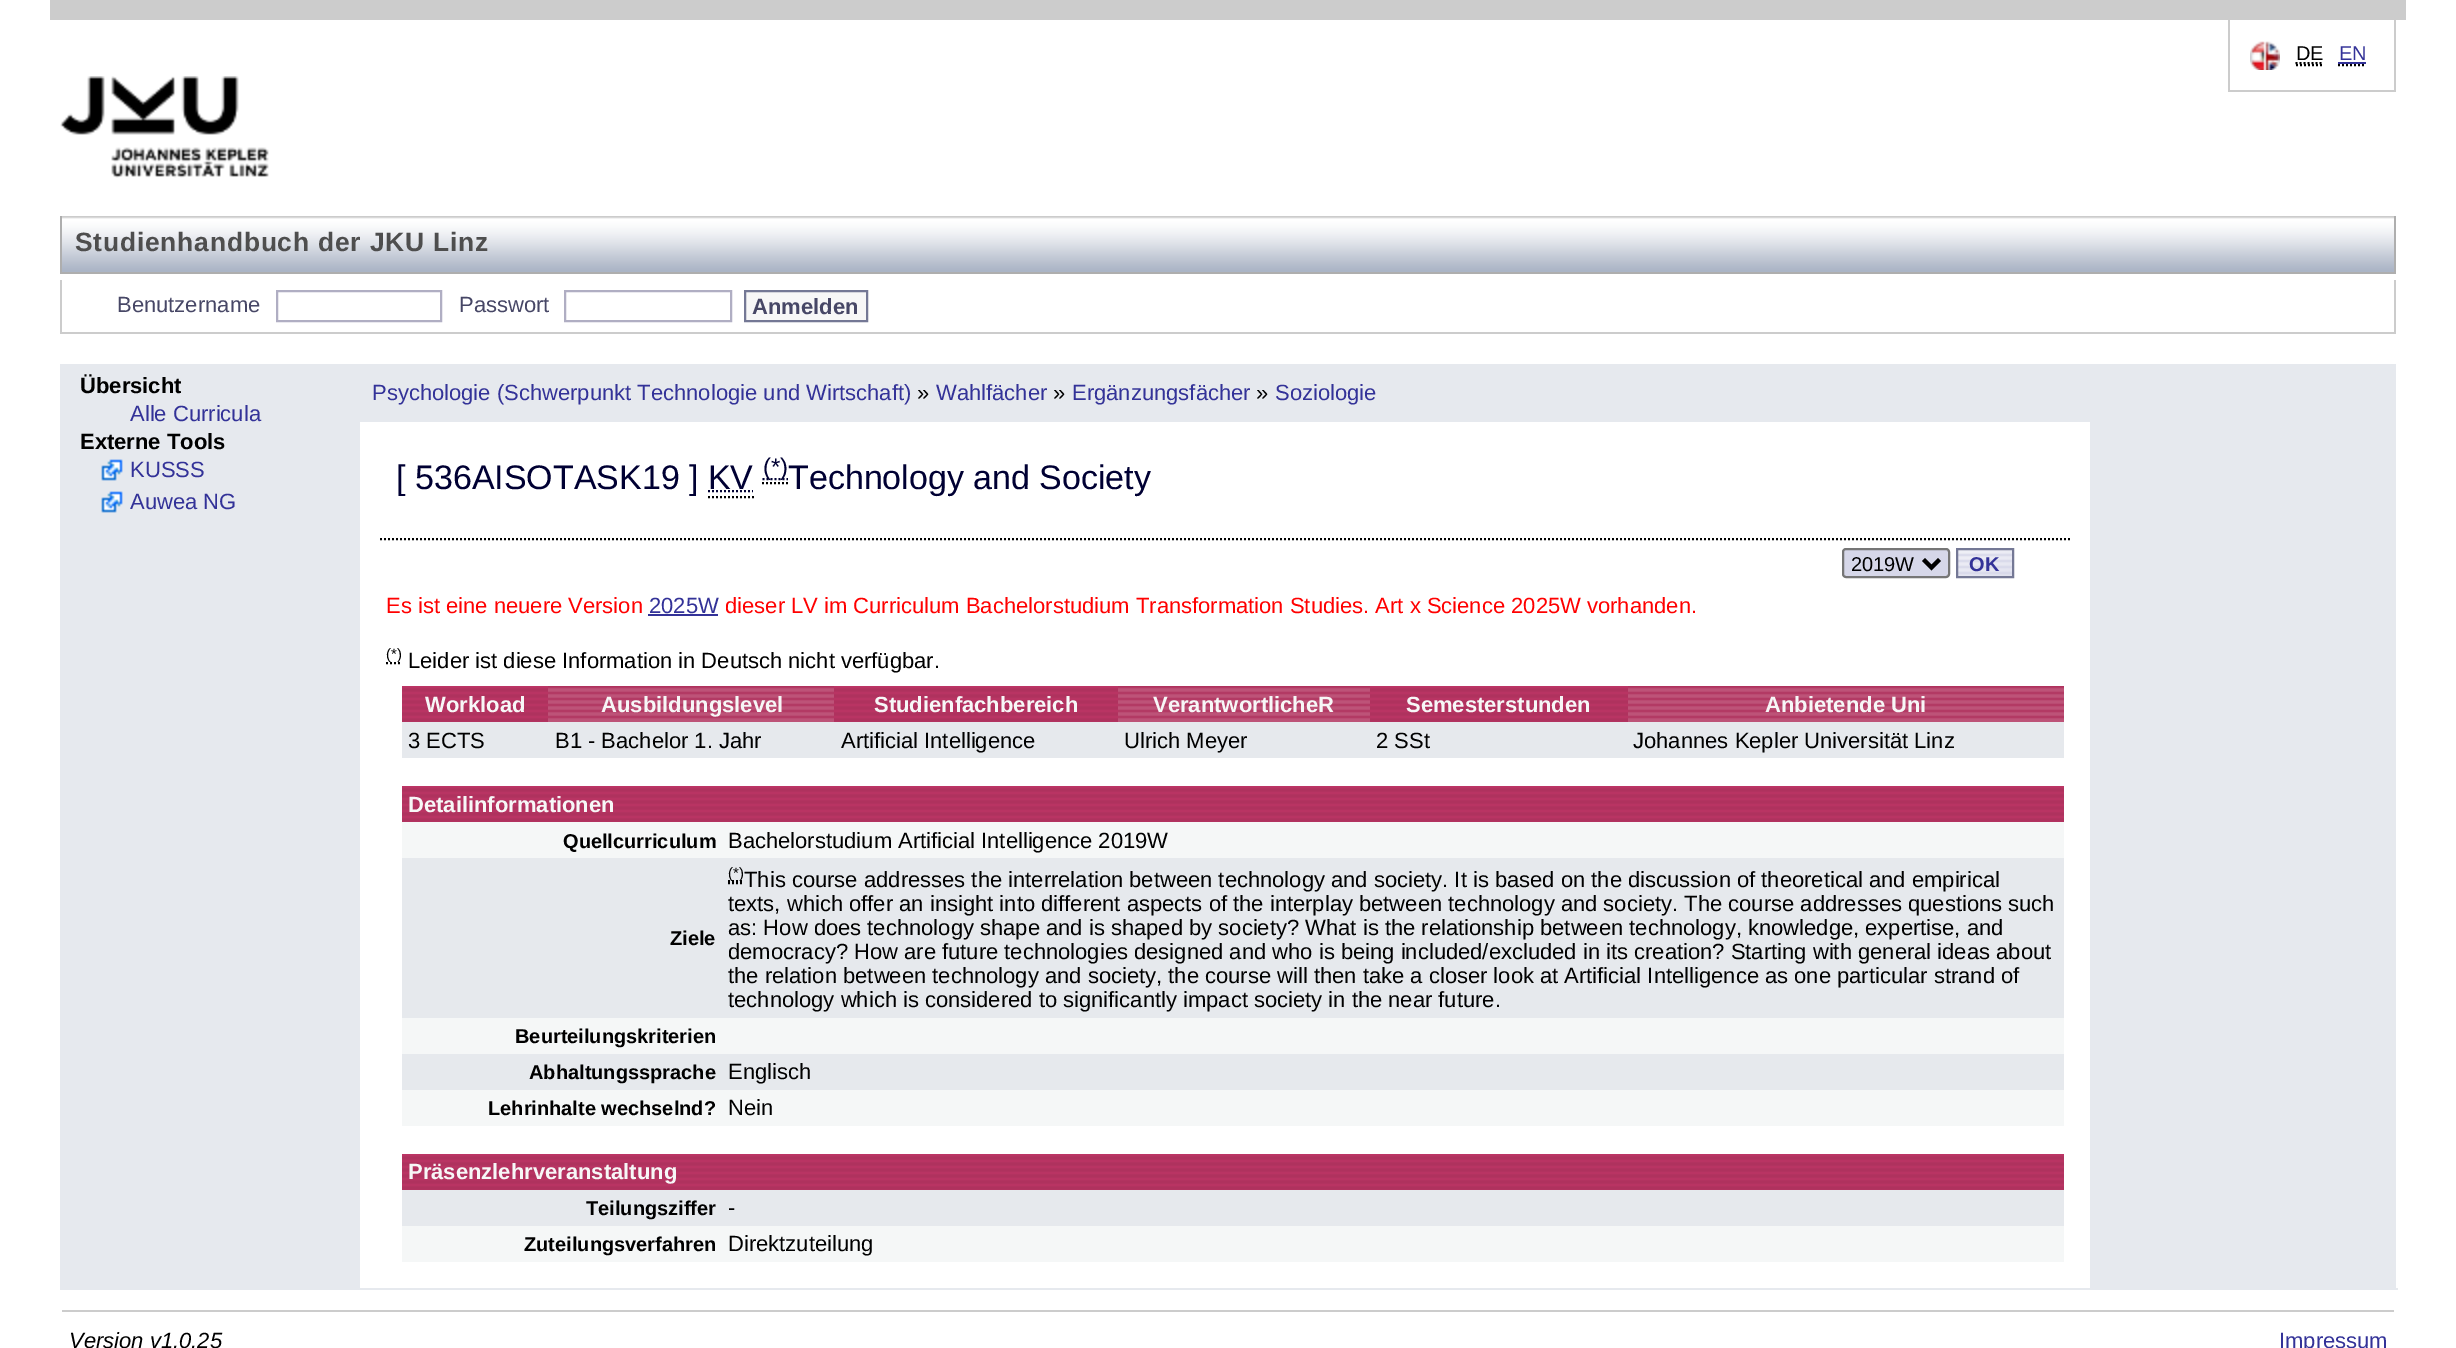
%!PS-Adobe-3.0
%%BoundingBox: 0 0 2456 1348
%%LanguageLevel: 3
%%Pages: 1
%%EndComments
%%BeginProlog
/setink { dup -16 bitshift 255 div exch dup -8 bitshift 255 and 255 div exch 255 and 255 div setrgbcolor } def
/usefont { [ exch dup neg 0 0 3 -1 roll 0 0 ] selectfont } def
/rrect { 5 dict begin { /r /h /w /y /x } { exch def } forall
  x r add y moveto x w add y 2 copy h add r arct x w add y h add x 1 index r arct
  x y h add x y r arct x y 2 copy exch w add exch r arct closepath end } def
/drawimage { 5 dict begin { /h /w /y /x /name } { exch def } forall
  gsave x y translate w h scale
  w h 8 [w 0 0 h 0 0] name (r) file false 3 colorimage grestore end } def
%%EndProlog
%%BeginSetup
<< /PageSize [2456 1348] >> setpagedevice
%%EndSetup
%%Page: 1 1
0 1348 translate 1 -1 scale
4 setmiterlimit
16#FFFFFF setink
0 0 2456 1348 rectfill
[
    [50 0 2356 20 16#CCCCCC]
    [2394 20 2 72 16#CCCCCC]
    [2228 90 168 2 16#CCCCCC]
    [2228 20 2 72 16#CCCCCC]
] { aload pop setink rectfill } forall
(img1.raw) 2250 41 30 29 drawimage
/LiberationSans-Regular 20 usefont
16#000000 setink
2296 60 moveto (DE) show
2 setlinewidth
[2 2] 0 setdash
2296 65 moveto 2322 65 lineto 2295.5 63 moveto 2323 63 lineto stroke
16#333298 setink
2339 60 moveto (EN) show
16#000000 setink
2338 65 moveto 2366 65 lineto stroke
16#333298 setink
2338 62 28 2 rectfill
(img2.raw) 60 76 209 102 drawimage
(img3.raw) 62 216 2332 56 drawimage
[
    [2394 216 2 58 16#AEAEAE]
    [60 272 2336 2 16#AEAEAE]
    [60 216 2 58 16#AEAEAE]
] { aload pop setink rectfill } forall
/LiberationSans-Bold 26.4 usefont
16#4E4E4E setink
75 251 moveto 0.8 0 (Studienhandbuch der JKU Linz) ashow
[
    [2394 280 2 54 16#CCCCCC]
    [60 332 2336 2 16#CCCCCC]
    [60 280 2 54 16#CCCCCC]
] { aload pop setink rectfill } forall
/LiberationSans-Regular 22 usefont
16#474766 setink
117 312 moveto (Benutzername) show
16#B0AEC3 setink
[] 0 setdash
277 291 164 30 rectstroke
16#474766 setink
459 312 moveto (Passwort) show
16#B0AEC3 setink
565 291 166 30 rectstroke
16#F7F7F7 setink
745 291 moveto 867 291 lineto 867 321 lineto 745 321 lineto closepath gsave fill grestore
16#747895 setink
stroke
/LiberationSans-Bold 22 usefont
16#474766 setink
752 314 moveto (Anmelden) show
16#E6E9EE setink
60 364 300 924 rectfill
16#000000 setink
80 393 moveto (Übersicht) show
/LiberationSans-Regular 22 usefont
16#333298 setink
130 421 moveto (Alle Curricula) show
/LiberationSans-Bold 22 usefont
16#000000 setink
80 449 moveto (Externe Tools) show
(img4.raw) 101 459 22 22 drawimage
/LiberationSans-Regular 22 usefont
16#333298 setink
130 477 moveto (KUSSS) show
(img4.raw) 101 491 22 22 drawimage
130 509 moveto (Auwea NG) show
16#E6E9EE setink
360 364 2036 58 rectfill
16#333298 setink
372 400 moveto (Psychologie \(Schwerpunkt Technologie und Wirtschaft\)) show
16#000000 setink
917 400 moveto (») show
16#333298 setink
936 400 moveto (Wahlfächer) show
16#000000 setink
1053 400 moveto (») show
16#333298 setink
1072 400 moveto (Ergänzungsfächer) show
16#000000 setink
1256 400 moveto (») show
16#333298 setink
1275 400 moveto (Soziologie) show
16#E6E9EE setink
2090 420 2 868 rectfill
16#000000 setink
[2 2] 0 setdash
380 539 moveto 2070 539 lineto stroke
/LiberationSans-Regular 34 usefont
16#000033 setink
396 489 moveto ([ 536AISOTASK19 ] KV) show
762.5 479 moveto 788 479 lineto stroke
/LiberationSans-Regular 24 usefont
763 475 moveto (\(*\)) show
16#000000 setink
762 483 moveto 788 483 lineto stroke
/LiberationSans-Regular 34 usefont
16#000033 setink
788 489 moveto (Technology and Society) show
708 491 moveto 753 491 lineto stroke
16#000000 setink
708 497 moveto 754 497 lineto stroke
16#D6D7E9 setink
1843 549 106 28 3 rrect gsave fill grestore
16#767676 setink
[] 0 setdash
stroke
16#000000 setink
4 setlinewidth
1923.5 559.5 moveto 1931.5 567.5 lineto 1939.5 559.5 lineto stroke
/LiberationSans-Regular 20 usefont
1851 571 moveto (2019W) show
(img5.raw) 1958 550 54 26 drawimage
16#747895 setink
2 setlinewidth
1957 549 56 28 rectstroke
/LiberationSans-Bold 20 usefont
16#333298 setink
1969 571 moveto (OK) show
/LiberationSans-Regular 22 usefont
16#FF0000 setink
386 613 moveto (Es ist eine neuere Version) show
16#333298 setink
649 613 moveto (2025W) show
648 614 70 2 rectfill
16#FF0000 setink
725 613 moveto (dieser LV im Curriculum Bachelorstudium Transformation Studies. Art x Science 2025W vorhanden.) show
16#000000 setink
[2 2] 0 setdash
386 663 moveto 402 663 lineto stroke
/LiberationSans-Regular 15 usefont
386 659 moveto (\(*\)) show
/LiberationSans-Regular 22 usefont
408 668 moveto (Leider ist diese Information in Deutsch nicht verfügbar.) show
(img6.raw) 402 686 146 36 drawimage
/LiberationSans-Bold 22 usefont
16#F7F7F7 setink
425 712 moveto (Workload) show
(img7.raw) 548 686 286 36 drawimage
601 712 moveto (Ausbildungslevel) show
(img8.raw) 834 686 284 36 drawimage
874 712 moveto (Studienfachbereich) show
(img9.raw) 1118 686 252 36 drawimage
1153 712 moveto (VerantwortlicheR) show
(img10.raw) 1370 686 258 36 drawimage
1406 712 moveto (Semesterstunden) show
(img11.raw) 1628 686 436 36 drawimage
1765 712 moveto (Anbietende Uni) show
16#E6E9ED setink
402 722 1662 36 rectfill
/LiberationSans-Regular 22 usefont
16#000000 setink
[
    [(3 ECTS) 408 748]
    [(B1 - Bachelor 1. Jahr) 555 748]
    [(Artificial Intelligence) 841 748]
    [(Ulrich Meyer) 1124 748]
    [(2 SSt) 1376 748]
    [(Johannes Kepler Universität Linz) 1633 748]
] { aload pop moveto show } forall
(img12.raw) 402 786 1662 36 drawimage
/LiberationSans-Bold 22 usefont
16#F7F7F7 setink
408 812 moveto (Detailinformationen) show
16#F5F7F7 setink
402 822 1662 36 rectfill
/LiberationSans-Bold 20 usefont
16#000000 setink
563 848 moveto (Quellcurriculum) show
/LiberationSans-Regular 22 usefont
728 848 moveto (Bachelorstudium Artificial Intelligence 2019W) show
16#E6E9ED setink
402 858 1662 160 rectfill
/LiberationSans-Bold 20 usefont
16#000000 setink
670 945 moveto (Ziele) show
728 883 moveto 744 883 lineto 728 881 moveto 744 881 lineto stroke
/LiberationSans-Regular 15 usefont
728 878 moveto (\(*\)) show
/LiberationSans-Regular 22 usefont
[
    [(This course addresses the interrelation between technology and society. It is based on the discussion of theoretical and empirical) 744 887]
    [(texts, which offer an insight into different aspects of the interplay between technology and society. The course addresses questions such) 728 911]
    [(as: How does technology shape and is shaped by society? What is the relationship between technology, knowledge, expertise, and) 728 935]
    [(democracy? How are future technologies designed and who is being included/excluded in its creation? Starting with general ideas about) 728 959]
    [(the relation between technology and society, the course will then take a closer look at Artificial Intelligence as one particular strand of) 728 983]
    [(technology which is considered to significantly impact society in the near future.) 728 1007]
] { aload pop moveto show } forall
16#F5F7F7 setink
402 1018 1662 36 rectfill
/LiberationSans-Bold 20 usefont
16#000000 setink
515 1043 moveto (Beurteilungskriterien) show
16#E6E9ED setink
402 1054 1662 36 rectfill
16#000000 setink
529 1079 moveto (Abhaltungssprache) show
/LiberationSans-Regular 22 usefont
728 1079 moveto (Englisch) show
16#F5F7F7 setink
402 1090 1662 36 rectfill
/LiberationSans-Bold 20 usefont
16#000000 setink
488 1115 moveto (Lehrinhalte wechselnd?) show
/LiberationSans-Regular 22 usefont
728 1115 moveto (Nein) show
(img12.raw) 402 1154 1662 36 drawimage
/LiberationSans-Bold 22 usefont
16#F7F7F7 setink
408 1179 moveto (Präsenzlehrveranstaltung) show
16#E6E9ED setink
402 1190 1662 36 rectfill
/LiberationSans-Bold 20 usefont
16#000000 setink
586 1215 moveto (Teilungsziffer) show
/LiberationSans-Regular 22 usefont
728 1215 moveto (-) show
16#F5F7F7 setink
402 1226 1662 36 rectfill
/LiberationSans-Bold 20 usefont
16#000000 setink
524 1251 moveto (Zuteilungsverfahren) show
/LiberationSans-Regular 22 usefont
728 1251 moveto (Direktzuteilung) show
[
    [2092 422 304 866 16#E6E9EE]
    [60 1288 2338 2 16#E6E9EE]
    [62 1310 2332 2 16#CCCCCC]
] { aload pop setink rectfill } forall
/LiberationSans-Italic 22 usefont
16#000000 setink
69 1348 moveto (Version v1.0.25) show
/LiberationSans-Regular 22 usefont
16#333298 setink
2279 1348 moveto (Impressum) show
showpage
%%EOF
